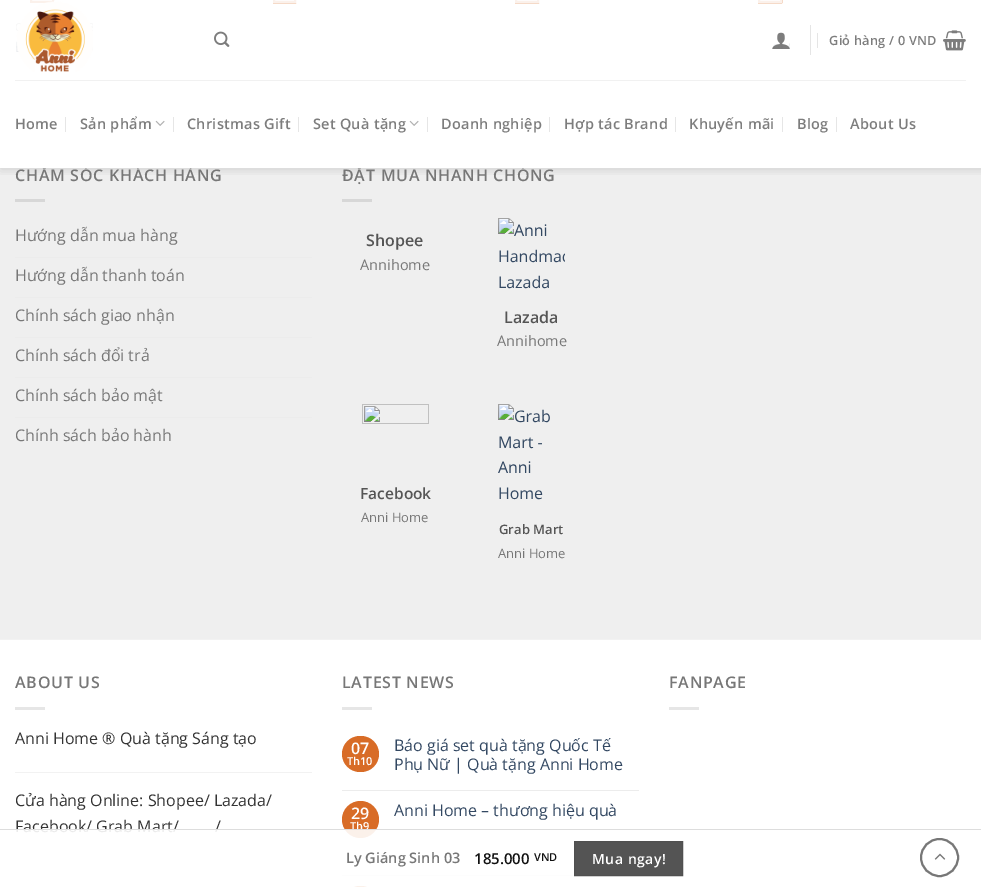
%!PS-Adobe-3.0
%%BoundingBox: 0 0 981 887
%%LanguageLevel: 3
%%Pages: 1
%%EndComments
%%BeginProlog
/setink { dup -16 bitshift 255 div exch dup -8 bitshift 255 and 255 div exch 255 and 255 div setrgbcolor } def
/usefont { [ exch dup neg 0 0 3 -1 roll 0 0 ] selectfont } def
/setalpha { dup .setfillconstantalpha .setstrokeconstantalpha } def
/disc { newpath 0 360 arc closepath } def
/rrect { 5 dict begin { /r /h /w /y /x } { exch def } forall
  x r add y moveto x w add y 2 copy h add r arct x w add y h add x 1 index r arct
  x y h add x y r arct x y 2 copy exch w add exch r arct closepath end } def
/softshadow { 12 dict begin { /a /b /q /h /w /y /x } { exch def } forall gsave /was 0 def
  9 -2 -9 { dup b mul 4 div /e exch def 1 sub .425 mul 2.718 exch exp 1 add a .99 .min exch div /now exch def
    1 1 now sub 1 was sub div sub setalpha /was now def
    w h .min e 2 mul add 0 gt { x e sub y e sub w e 2 mul add h e 2 mul add
      q e add b .6 mul add w h .min 2 div e add .min 0 .max rrect fill } if } for grestore end } def
/drawimage { 5 dict begin { /h /w /y /x /name } { exch def } forall
  gsave x y translate w h scale
  w h 8 [w 0 0 h 0 0] name (r) file false 3 colorimage grestore end } def
%%EndProlog
%%BeginSetup
<< /PageSize [981 887] /PageUsesTransparency true >> setpagedevice
%%EndSetup
%%Page: 1 1
0 .pushpdf14devicefilter
0 887 translate 1 -1 scale
4 setmiterlimit
16#FFFFFF setink
0 0 981 887 rectfill
16#EFEFEF setink
0 168 981 471 rectfill
16#DA7332 setink
2 setlinewidth
31 -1 22 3 rectstroke
274 -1 21 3 rectstroke
516 -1 22 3 rectstroke
759 -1 22 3 rectstroke
gsave
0 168 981 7 rectclip
16#000000 setink
1 1 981 168 0 5 0.15 softshadow
grestore
0.9 setalpha
16#FFFFFF setink
30 0 752 3 rectfill
1 setalpha
(img1.raw) 16 1 77 71 drawimage
(img2.raw) 214 31 16 16 drawimage
(img3.raw) 772 32 18 17 drawimage
0.1 setalpha
16#000000 setink
810 25 1 30 rectfill
817 33 1 15 rectfill
/OpenSans-SemiBold 12.75 usefont
1 setalpha
16#7D7D7D setink
829 45 moveto 0.25 0 (Giỏ hàng / 0 VND) ashow
(img4.raw) 943 30 23 21 drawimage
16#F1F1F1 setink
15 80 951 1 rectfill
/OpenSans-SemiBold 16 usefont
16#777777 setink
15 181 moveto 0.75 0 (CHĂM SÓC KHÁCH HÀNG) ashow
342 181 moveto 0.75 0 (ĐẶT MUA NHANH CHÓNG) ashow
16#FFFFFF setink
41 165 486 3 rectfill
/OpenSans-SemiBold 14.5 usefont
16#7D7D7D setink
15 129 moveto 0.25 0 (Home) ashow
16#E6E6E6 setink
65 117 1 15 rectfill
16#7D7D7D setink
80 129 moveto 0.25 0 (Sản phẩm) ashow
(img5.raw) 155 120 10 6 drawimage
16#E6E6E6 setink
173 117 1 15 rectfill
16#7D7D7D setink
187 129 moveto 0.25 0 (Christmas Gift) ashow
16#E6E6E6 setink
298 117 1 15 rectfill
16#7D7D7D setink
313 129 moveto 0.25 0 (Set Quà tặng) ashow
(img5.raw) 409 120 10 6 drawimage
16#E6E6E6 setink
427 117 1 15 rectfill
16#7D7D7D setink
441 129 moveto 0.25 0 (Doanh nghiệp) ashow
16#E6E6E6 setink
549 117 1 15 rectfill
16#7D7D7D setink
564 129 moveto 0.25 0 (Hợp tác Brand) ashow
16#E6E6E6 setink
675 117 1 15 rectfill
16#7D7D7D setink
689 129 moveto 0.25 0 (Khuyến mãi) ashow
16#E6E6E6 setink
782 117 1 15 rectfill
16#7D7D7D setink
797 129 moveto 0.25 0 (Blog) ashow
16#E6E6E6 setink
836 117 1 15 rectfill
16#7D7D7D setink
850 129 moveto 0.25 0 (About Us) ashow
16#D7D7D7 setink
15 199 30 3 rectfill
16#ECECEC setink
15 257 297 1 rectfill
/OpenSans-Regular 16 usefont
16#777777 setink
15 241 moveto (Hướng dẫn mua hàng) show
16#ECECEC setink
15 297 297 1 rectfill
16#777777 setink
15 281 moveto (Hướng dẫn thanh toán) show
16#ECECEC setink
15 337 297 1 rectfill
16#777777 setink
15 321 moveto (Chính sách giao nhận) show
16#ECECEC setink
15 377 297 1 rectfill
16#777777 setink
15 361 moveto (Chính sách đổi trả) show
16#ECECEC setink
15 417 297 1 rectfill
16#777777 setink
15 401 moveto (Chính sách bảo mật) show
15 441 moveto (Chính sách bảo hành) show
16#D7D7D7 setink
342 199 30 3 rectfill
/OpenSans-SemiBold 16 usefont
16#555555 setink
366 246 moveto (Shopee) show
/OpenSans-Regular 14.5 usefont
16#777777 setink
360 270 moveto (Annihome) show
(img6.raw) 498 218 67 71 drawimage
/OpenSans-SemiBold 16 usefont
16#555555 setink
504 323 moveto (Lazada) show
/OpenSans-Regular 14.5 usefont
16#777777 setink
497 346 moveto (Annihome) show
(img7.raw) 362 404 67 20 drawimage
/OpenSans-SemiBold 15.5 usefont
16#555555 setink
360 499 moveto (Facebook) show
/OpenSans-Regular 13 usefont
16#777777 setink
361 522 moveto (Anni Home) show
(img8.raw) 498 404 52 96 drawimage
/OpenSans-SemiBold 13 usefont
16#555555 setink
499 534 moveto (Grab Mart) show
/OpenSans-Regular 13 usefont
16#777777 setink
498 558 moveto (Anni Home) show
16#F2F2F2 setink
0 639 981 1 rectfill
/OpenSans-SemiBold 16 usefont
16#777777 setink
15 688 moveto 0.75 0 (ABOUT US) ashow
16#E6E6E6 setink
15 707 30 3 rectfill
/OpenSans-Regular 16 usefont
16#333333 setink
15 744 moveto (Anni Home ® Quà tặng Sáng tạo) show
16#F2F2F2 setink
15 772 297 1 rectfill
16#333333 setink
[
    [(Cửa hàng Online: Shopee/ Lazada/) 15 806]
    [(Facebook/ Grab Mart/) 15 832]
    [(/) 215 832]
] { aload pop moveto show } forall
/OpenSans-SemiBold 16 usefont
16#777777 setink
342 688 moveto 0.75 0 (LATEST NEWS) ashow
16#E6E6E6 setink
342 707 30 3 rectfill
16#D86C27 setink
342 736 37 36 18 rrect fill
16#FFFFFF setink
351 754 moveto (07) show
/OpenSans-SemiBold 11 usefont
347 765 moveto (Th10) show
/OpenSans-Regular 16 usefont
16#334862 setink
394 751 moveto (Báo giá set quà tặng Quốc Tế) show
394 770 moveto (Phụ Nữ | Quà tặng Anni Home) show
16#ECECEC setink
342 790 297 1 rectfill
16#D86C27 setink
360.5 819.5 18.5 disc fill
/OpenSans-SemiBold 16 usefont
16#FFFFFF setink
351 819 moveto (29) show
/OpenSans-SemiBold 11 usefont
350 830 moveto (Th9) show
/OpenSans-Regular 16 usefont
16#334862 setink
394 816 moveto (Anni Home – thương hiệu quà) show
16#ECECEC setink
342 875 232 1 rectfill
16#D86C27 setink
342 886 37 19 18 rrect fill
/OpenSans-SemiBold 16 usefont
16#777777 setink
669 688 moveto 0.75 0 (FANPAGE) ashow
16#E6E6E6 setink
669 707 30 3 rectfill
16#777777 setink
939.5 857.5 18.5 disc stroke
(img9.raw) 934 853 12 7 drawimage
0.9 setalpha
16#FFFFFF setink
16 830 558 57 rectfill
1 setalpha
16#DDDDDD setink
0 829 981 1 rectfill
/OpenSans-SemiBold 14.5 usefont
16#777777 setink
346 863 moveto (Ly Giáng Sinh 03) show
/OpenSans-SemiBold 15 usefont
16#111111 setink
474 864 moveto (185.000) show
/OpenSans-SemiBold 11 usefont
534 861 moveto (VND) show
16#545454 setink
574.5 841.5 moveto 682.5 841.5 lineto 682.5 875.5 lineto 574.5 875.5 lineto closepath gsave fill grestore
16#505050 setink
1 setlinewidth
stroke
/OpenSans-SemiBold 14 usefont
16#FFFFFF setink
592 864 moveto 0.5 0 (Mua ngay!) ashow
.poppdf14devicefilter showpage
%%EOF
